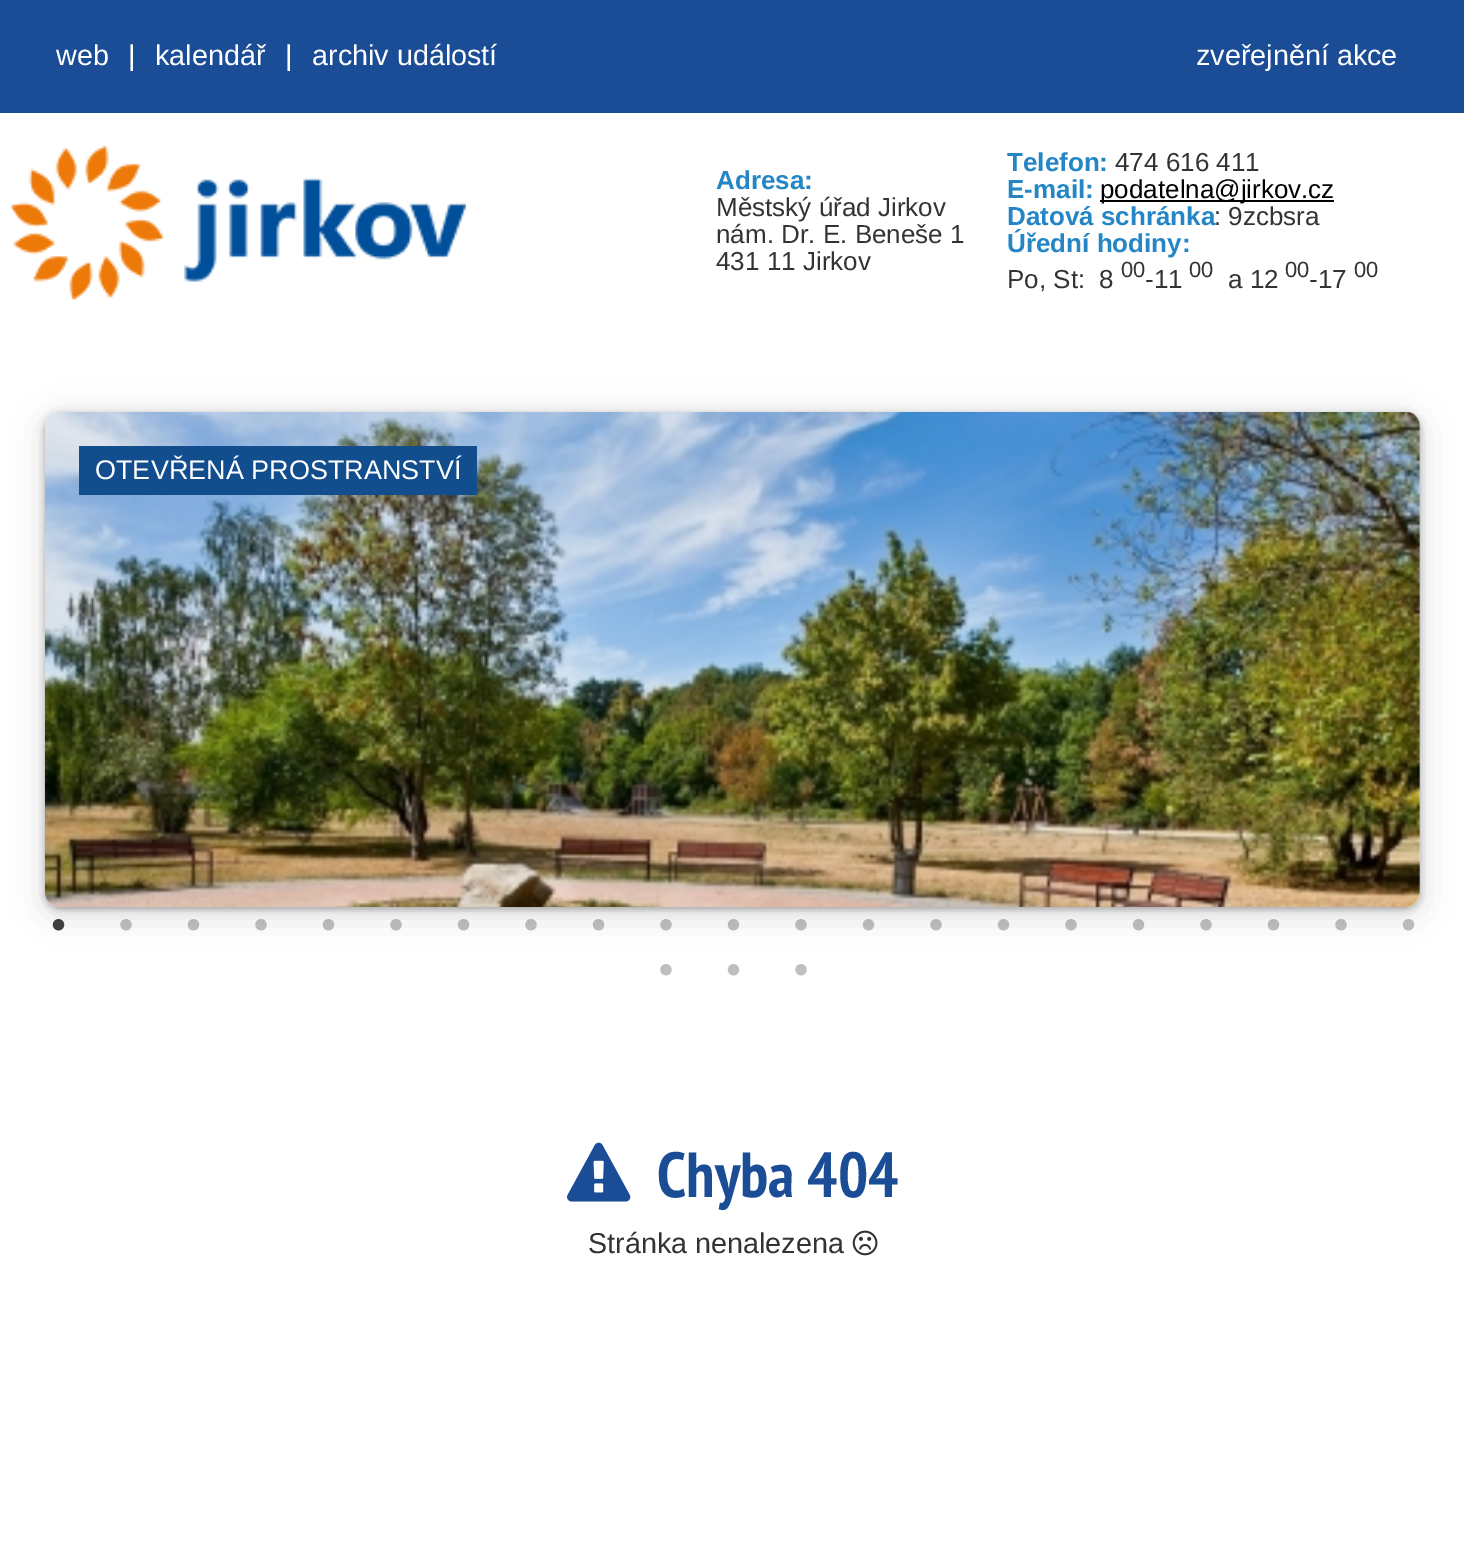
%!PS-Adobe-3.0
%%BoundingBox: 0 0 1464 1563
%%LanguageLevel: 3
%%Pages: 1
%%EndComments
%%BeginProlog
/setink { dup -16 bitshift 255 div exch dup -8 bitshift 255 and 255 div exch 255 and 255 div setrgbcolor } def
/usefont { [ exch dup neg 0 0 3 -1 roll 0 0 ] selectfont } def
/setalpha { dup .setfillconstantalpha .setstrokeconstantalpha } def
/rrect { 5 dict begin { /r /h /w /y /x } { exch def } forall
  x r add y moveto x w add y 2 copy h add r arct x w add y h add x 1 index r arct
  x y h add x y r arct x y 2 copy exch w add exch r arct closepath end } def
/softshadow { 12 dict begin { /a /b /q /h /w /y /x } { exch def } forall gsave /was 0 def
  9 -2 -9 { dup b mul 4 div /e exch def 1 sub .425 mul 2.718 exch exp 1 add a .99 .min exch div /now exch def
    1 1 now sub 1 was sub div sub setalpha /was now def
    w h .min e 2 mul add 0 gt { x e sub y e sub w e 2 mul add h e 2 mul add
      q e add b .6 mul add w h .min 2 div e add .min 0 .max rrect fill } if } for grestore end } def
/drawimage { 5 dict begin { /h /w /y /x /name } { exch def } forall
  gsave x y translate w h scale
  w h 8 [w 0 0 h 0 0] name (r) file false 3 colorimage grestore end } def
%%EndProlog
%%BeginSetup
<< /PageSize [1464 1563] /PageUsesTransparency true >> setpagedevice
%%EndSetup
%%Page: 1 1
0 .pushpdf14devicefilter
0 1563 translate 1 -1 scale
4 setmiterlimit
16#FFFFFF setink
0 0 1464 1563 rectfill
16#1B4D96 setink
0 0 1464 113 rectfill
/LiberationSans-Regular 28.75 usefont
16#FFFFFF setink
[
    [(web) 56 65]
    [(|) 128 65]
    [(kalendář) 155 65]
    [(|) 285 65]
    [(archiv událostí) 312 65]
    [(zveřejnění akce) 1196 65]
] { aload pop moveto show } forall
(img1.raw) 11 146 455 154 drawimage
/LiberationSans-Bold 26 usefont
16#2486C4 setink
716 189 moveto (Adresa:) show
/LiberationSans-Regular 26 usefont
16#333333 setink
[
    [(Městský úřad Jirkov) 716 216]
    [(nám. Dr. E. Beneše 1) 716 243]
    [(431 11 Jirkov) 716 270]
] { aload pop moveto show } forall
/LiberationSans-Bold 26 usefont
16#2486C4 setink
1007 171 moveto (Telefon:) show
/LiberationSans-Regular 26 usefont
16#333333 setink
1115 171 moveto (474 616 411) show
/LiberationSans-Bold 26 usefont
16#2486C4 setink
1007 198 moveto (E-mail:) show
16#000000 setink
1100 200 234 2 rectfill
/LiberationSans-Regular 26 usefont
1100 198 moveto (podatelna@jirkov.cz) show
/LiberationSans-Bold 26 usefont
16#2486C4 setink
1007 225 moveto (Datová schránka) show
/LiberationSans-Regular 26 usefont
16#333333 setink
1214 225 moveto (: 9zcbsra) show
/LiberationSans-Bold 26 usefont
16#2486C4 setink
1007 252 moveto (Úřední hodiny:) show
/LiberationSans-Regular 26 usefont
16#333333 setink
1007 288 moveto (Po, St:  8) show
/LiberationSans-Regular 22 usefont
1121 277 moveto (00) show
/LiberationSans-Regular 26 usefont
1145 288 moveto (-11) show
/LiberationSans-Regular 22 usefont
1189 277 moveto (00) show
/LiberationSans-Regular 26 usefont
1228 288 moveto (a 12) show
/LiberationSans-Regular 22 usefont
1285 277 moveto (00) show
/LiberationSans-Regular 26 usefont
1309 288 moveto (-17) show
/LiberationSans-Regular 22 usefont
1354 277 moveto (00) show
16#000000 setink
43 416 1379 500 16 16 0.12 softshadow
45 414 1375 495 14 3.5 0.3 softshadow
16#FFFFFF setink
45 412 1375 495 14 rrect fill
(img2.raw) 45 412 1375 495 drawimage
16#124D8E setink
79 446 398 49 rectfill
/LiberationSans-Regular 27 usefont
16#FFFFFF setink
95 479 moveto (OTEVŘENÁ PROSTRANSTVÍ) show
(img3.raw) 52 919 13 12 drawimage
(img4.raw) 120 919 12 12 drawimage
(img5.raw) 187 919 13 12 drawimage
(img4.raw) 255 919 12 12 drawimage
(img5.raw) 322 919 13 12 drawimage
(img4.raw) 390 919 12 12 drawimage
(img5.raw) 457 919 13 12 drawimage
(img4.raw) 525 919 12 12 drawimage
(img5.raw) 592 919 13 12 drawimage
(img4.raw) 660 919 12 12 drawimage
(img5.raw) 727 919 13 12 drawimage
(img4.raw) 795 919 12 12 drawimage
(img5.raw) 862 919 13 12 drawimage
(img4.raw) 930 919 12 12 drawimage
(img5.raw) 997 919 13 12 drawimage
(img4.raw) 1065 919 12 12 drawimage
(img5.raw) 1132 919 13 12 drawimage
(img4.raw) 1200 919 12 12 drawimage
(img5.raw) 1267 919 13 12 drawimage
(img4.raw) 1335 919 12 12 drawimage
(img6.raw) 1402 919 13 12 drawimage
(img7.raw) 660 964 12 12 drawimage
(img8.raw) 727 964 13 12 drawimage
(img7.raw) 795 964 12 12 drawimage
(img9.raw) 567 1142 64 60 drawimage
/PTSansNarrow-Bold 63.5 usefont
16#1B4D96 setink
657 1197 moveto (Chyba 404) show
/LiberationSans-Regular 28.75 usefont
16#333333 setink
588 1253 moveto (Stránka nenalezena) show
(img10.raw) 852 1230 26 26 drawimage
.poppdf14devicefilter showpage
%%EOF
